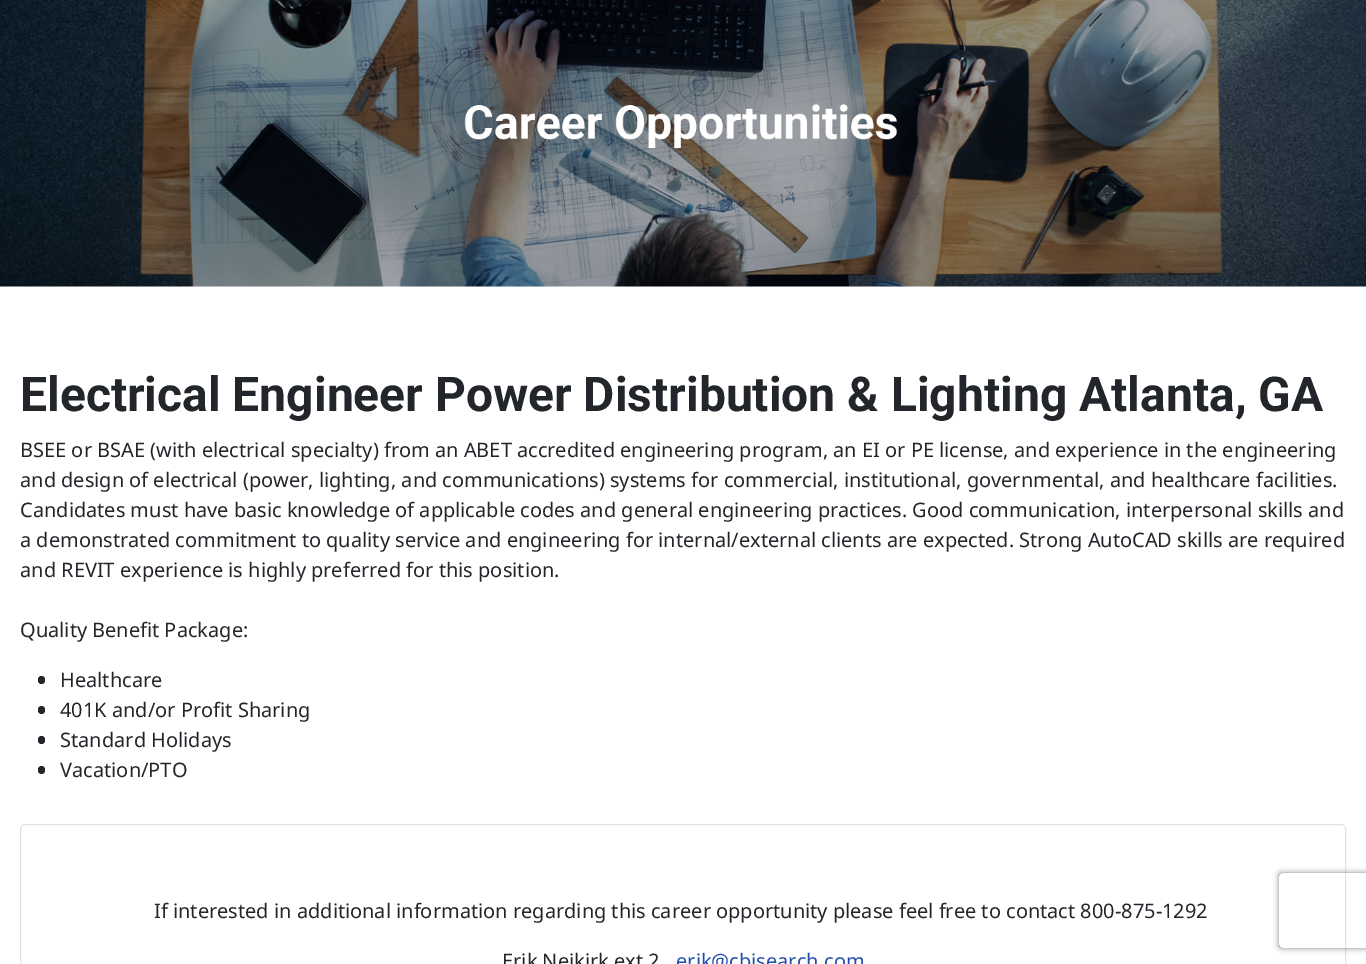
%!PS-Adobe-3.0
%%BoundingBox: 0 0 1366 964
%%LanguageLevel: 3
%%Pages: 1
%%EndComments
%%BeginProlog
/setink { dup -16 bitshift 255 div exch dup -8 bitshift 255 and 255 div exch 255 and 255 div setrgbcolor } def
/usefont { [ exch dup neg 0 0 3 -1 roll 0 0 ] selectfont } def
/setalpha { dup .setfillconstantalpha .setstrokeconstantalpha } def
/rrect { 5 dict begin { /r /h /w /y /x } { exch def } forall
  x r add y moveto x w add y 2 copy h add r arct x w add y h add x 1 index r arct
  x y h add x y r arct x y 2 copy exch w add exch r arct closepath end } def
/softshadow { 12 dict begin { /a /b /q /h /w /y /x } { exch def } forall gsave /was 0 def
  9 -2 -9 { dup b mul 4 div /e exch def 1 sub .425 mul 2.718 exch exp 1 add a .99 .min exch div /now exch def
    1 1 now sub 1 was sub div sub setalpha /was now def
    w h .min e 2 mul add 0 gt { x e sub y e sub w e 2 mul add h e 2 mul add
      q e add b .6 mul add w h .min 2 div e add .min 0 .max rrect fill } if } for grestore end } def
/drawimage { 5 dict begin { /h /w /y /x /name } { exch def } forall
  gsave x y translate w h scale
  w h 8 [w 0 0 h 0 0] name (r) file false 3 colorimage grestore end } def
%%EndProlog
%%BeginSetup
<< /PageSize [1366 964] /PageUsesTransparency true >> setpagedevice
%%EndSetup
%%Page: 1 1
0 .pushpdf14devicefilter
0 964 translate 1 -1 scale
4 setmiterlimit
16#FFFFFF setink
0 0 1366 964 rectfill
(img1.raw) 0 0 1366 287 drawimage
/Roboto-Bold 48 usefont
16#22262A setink
20 411 moveto (Electrical Engineer Power Distribution & Lighting Atlanta, GA) show
/NotoSans-Regular 20 usefont
[
    [(BSEE or BSAE \(with electrical specialty\) from an ABET accredited engineering program, an EI or PE license, and experience in the engineering) 20 457]
    [(and design of electrical \(power, lighting, and communications\) systems for commercial, institutional, governmental, and healthcare facilities.) 20 487]
    [(Candidates must have basic knowledge of applicable codes and general engineering practices. Good communication, interpersonal skills and) 20 517]
    [(a demonstrated commitment to quality service and engineering for internal/external clients are expected. Strong AutoCAD skills are required) 20 547]
    [(and REVIT experience is highly preferred for this position.) 20 577]
    [(Quality Benefit Package:) 20 637]
] { aload pop moveto show } forall
38 676 7 8 3.5 rrect fill
60 687 moveto (Healthcare) show
38 706 7 8 3.5 rrect fill
60 717 moveto (401K and/or Profit Sharing) show
38 736 7 8 3.5 rrect fill
60 747 moveto (Standard Holidays) show
38 766 7 8 3.5 rrect fill
60 777 moveto (Vacation/PTO) show
16#DFE3E7 setink
20.5 824.5 1325 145 4.5 rrect stroke
16#22262A setink
154 918 moveto (If interested in additional information regarding this career opportunity please feel free to contact 800-875-1292) show
502 968 moveto (Erik Neikirk ext.2) show
16#224FAA setink
676 968 moveto (erik@cbisearch.com) show
gsave
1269 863 moveto 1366 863 lineto 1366 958 lineto 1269 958 lineto closepath 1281.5 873 moveto 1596.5 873 lineto 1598 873 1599 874 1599 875.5 curveto 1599 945.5 lineto 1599 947 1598 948 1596.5 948 curveto 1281.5 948 lineto 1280 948 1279 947 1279 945.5 curveto 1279 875.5 lineto 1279 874 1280 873 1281.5 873 curveto closepath eoclip newpath
16#808080 setink
1279 873 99 75 2.5 3 1 softshadow
grestore
.poppdf14devicefilter showpage
%%EOF
